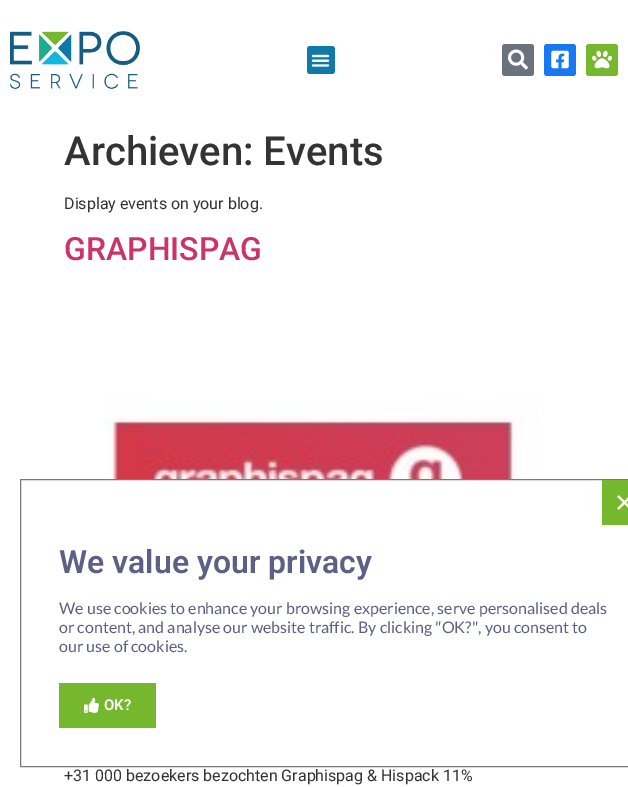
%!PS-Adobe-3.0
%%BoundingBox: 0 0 628 787
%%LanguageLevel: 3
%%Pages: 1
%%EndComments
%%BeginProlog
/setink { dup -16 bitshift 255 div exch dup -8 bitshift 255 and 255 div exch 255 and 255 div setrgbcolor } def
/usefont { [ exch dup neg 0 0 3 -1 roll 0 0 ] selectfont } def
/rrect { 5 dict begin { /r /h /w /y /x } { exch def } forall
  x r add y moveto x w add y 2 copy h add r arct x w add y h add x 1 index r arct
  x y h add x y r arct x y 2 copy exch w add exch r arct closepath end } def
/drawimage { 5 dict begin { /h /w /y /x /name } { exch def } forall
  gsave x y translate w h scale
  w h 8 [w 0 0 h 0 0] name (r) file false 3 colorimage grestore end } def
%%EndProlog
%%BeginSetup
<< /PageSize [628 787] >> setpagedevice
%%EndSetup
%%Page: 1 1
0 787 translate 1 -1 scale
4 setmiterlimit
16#FFFFFF setink
0 0 628 787 rectfill
(img1.raw) 10 31 130 58 drawimage
16#0F7AA8 setink
307 46 28 28 3 rrect fill
(img2.raw) 311 54 19 13 drawimage
16#69727D setink
502 44 32 32 3 rrect fill
(img3.raw) 508 49 20 21 drawimage
16#1877F2 setink
544 44 32 32 3 rrect fill
(img4.raw) 551 50 18 19 drawimage
16#76B82D setink
586 44 32 32 3 rrect fill
(img5.raw) 592 50 20 19 drawimage
/Roboto-Medium 40 usefont
16#333333 setink
64 165 moveto (Archieven: Events) show
/Roboto-Regular 16 usefont
64 209 moveto (Display events on your blog.) show
/Roboto-Medium 32 usefont
16#CC3366 setink
64 260 moveto (GRAPHISPAG) show
(img6.raw) 104 396 435 83 drawimage
/Roboto-Regular 16 usefont
16#333333 setink
64 781 moveto (+31 000 bezoekers bezochten Graphispag & Hispack 11%) show
16#7A7A7A setink
20.5 479.5 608 287 rectstroke
16#76B82D setink
602 480 26 45 rectfill
(img7.raw) 617 495 11 15 drawimage
/Roboto-SemiBold 32 usefont
16#5D6084 setink
59 573 moveto (We value your privacy) show
/Lato-Regular 16 usefont
[
    [(We use cookies to enhance your browsing experience, serve personalised deals) 59 614]
    [(or content, and analyse our website traffic. By clicking "OK?", you consent to) 59 633]
    [(our use of cookies.) 59 652]
] { aload pop moveto show } forall
16#76B82D setink
59 683 97 45 rectfill
(img8.raw) 84 697 15 16 drawimage
/Roboto-SemiBold 15 usefont
16#FFFFFF setink
104 710 moveto (OK?) show
showpage
%%EOF
